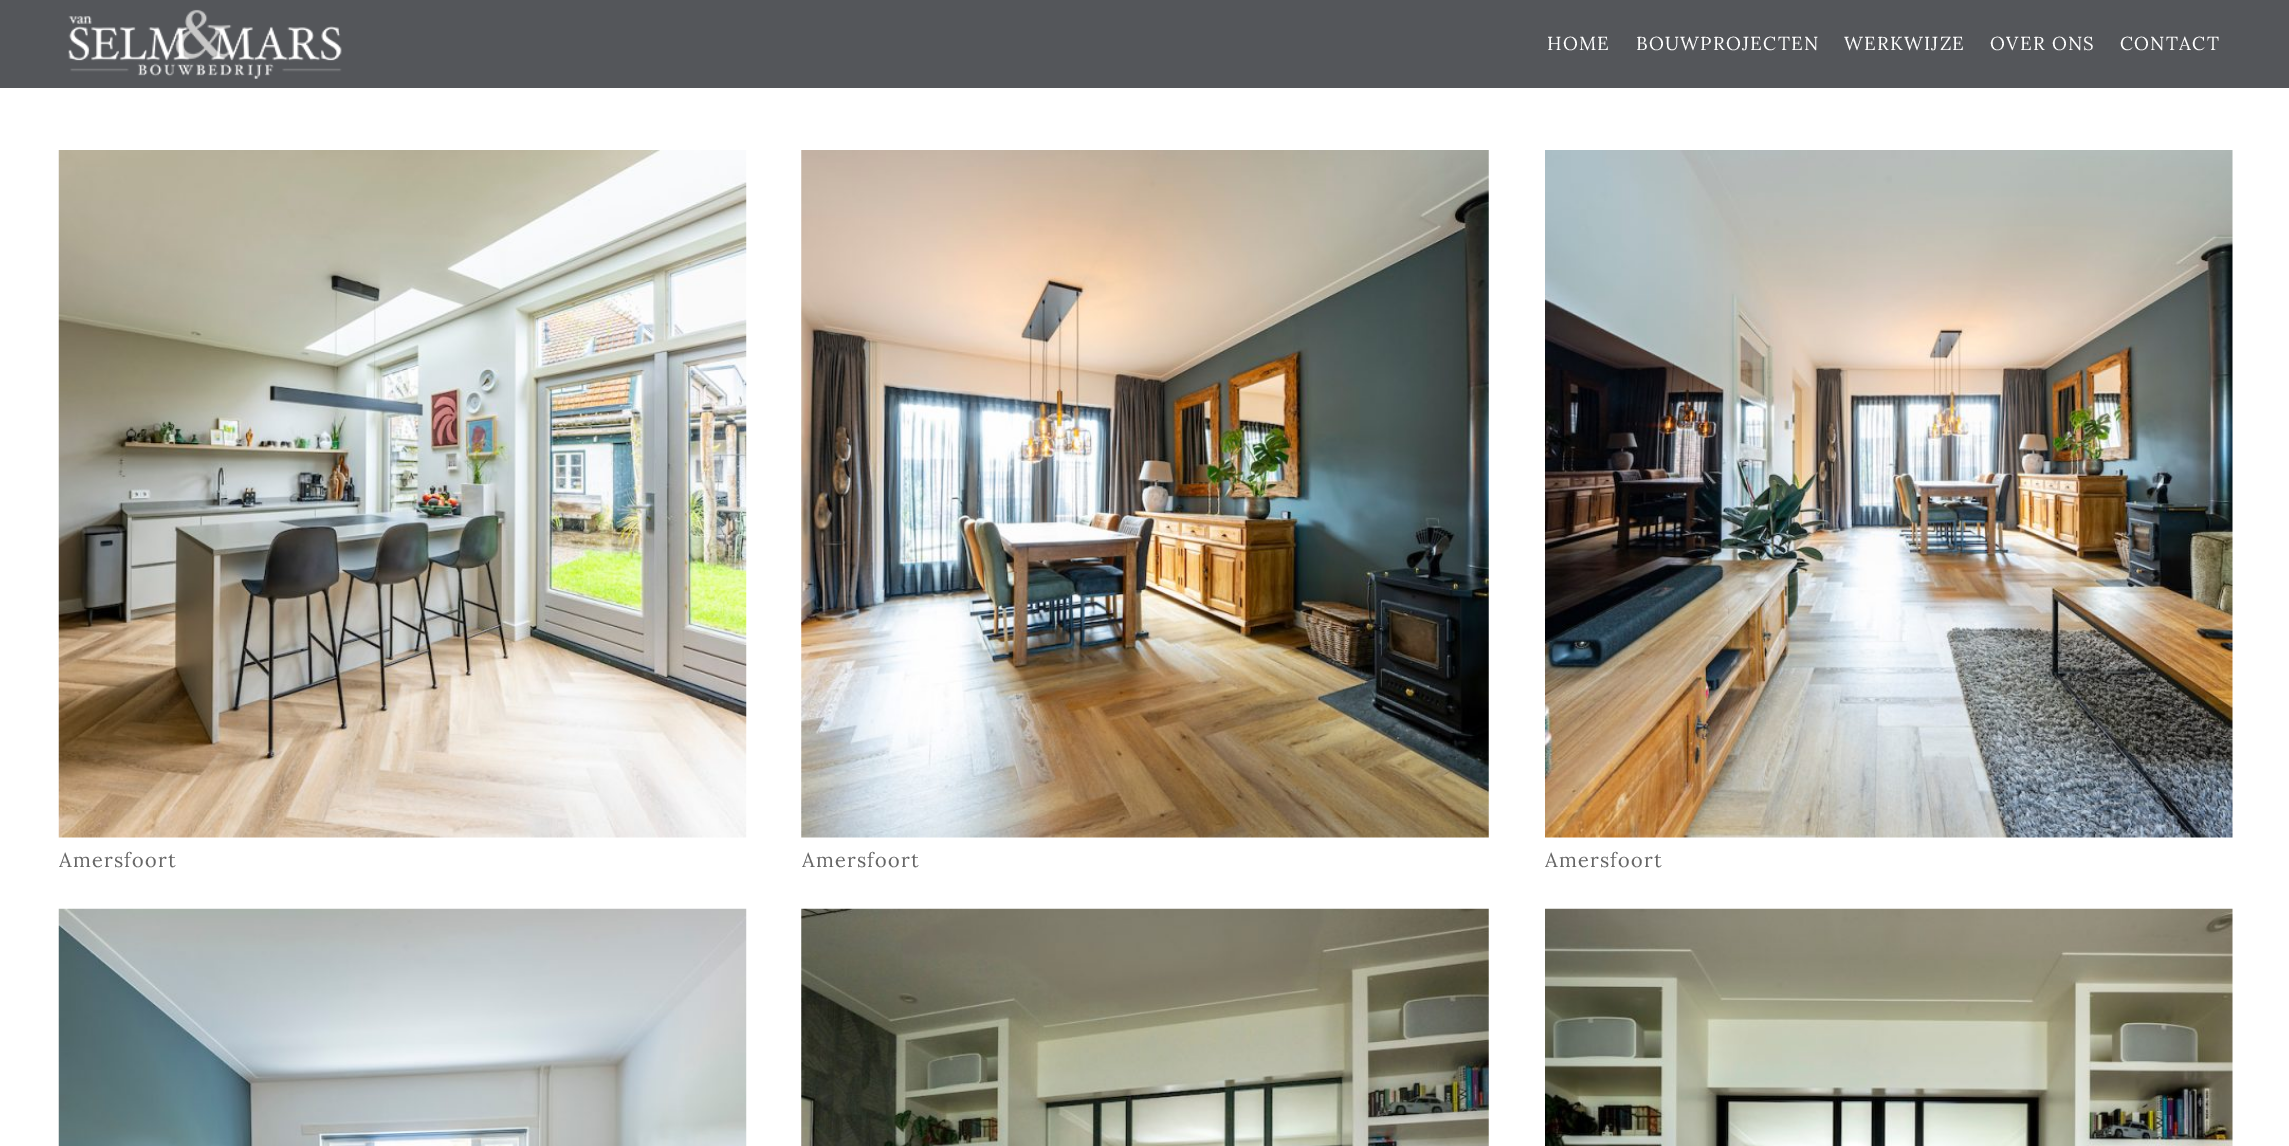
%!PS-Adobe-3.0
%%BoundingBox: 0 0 2289 1146
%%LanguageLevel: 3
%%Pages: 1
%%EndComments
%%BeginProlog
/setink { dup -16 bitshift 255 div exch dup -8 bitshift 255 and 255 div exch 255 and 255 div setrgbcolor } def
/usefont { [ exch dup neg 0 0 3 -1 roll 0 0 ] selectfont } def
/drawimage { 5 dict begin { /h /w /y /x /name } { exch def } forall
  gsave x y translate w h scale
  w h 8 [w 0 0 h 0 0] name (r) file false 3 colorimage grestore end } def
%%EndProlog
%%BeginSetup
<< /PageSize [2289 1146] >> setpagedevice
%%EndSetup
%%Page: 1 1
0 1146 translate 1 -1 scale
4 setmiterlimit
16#FFFFFF setink
0 0 2289 1146 rectfill
16#54565A setink
0 0 2289 88 rectfill
(img1.raw) 68 9 274 70 drawimage
/Lora-Regular 18.75 usefont
16#FFFFFF setink
1547 50 moveto 1.25 0 (HOME) ashow
1636 50 moveto 1.25 0 (BOUWPROJECTEN) ashow
1844 50 moveto 1.25 0 (WERKWIJZE) ashow
1990 50 moveto 1.25 0 (OVER ONS) ashow
2120 50 moveto 1.25 0 (CONTACT) ashow
(img2.raw) 58 150 689 688 drawimage
/Lora-Regular 20 usefont
16#666666 setink
59 867 moveto 1.25 0 (Amersfoort) ashow
(img3.raw) 801 150 688 688 drawimage
802 867 moveto 1.25 0 (Amersfoort) ashow
(img4.raw) 1545 150 688 688 drawimage
1545 867 moveto 1.25 0 (Amersfoort) ashow
(img5.raw) 58 908 689 238 drawimage
(img6.raw) 801 908 688 238 drawimage
(img7.raw) 1545 908 688 238 drawimage
showpage
%%EOF
